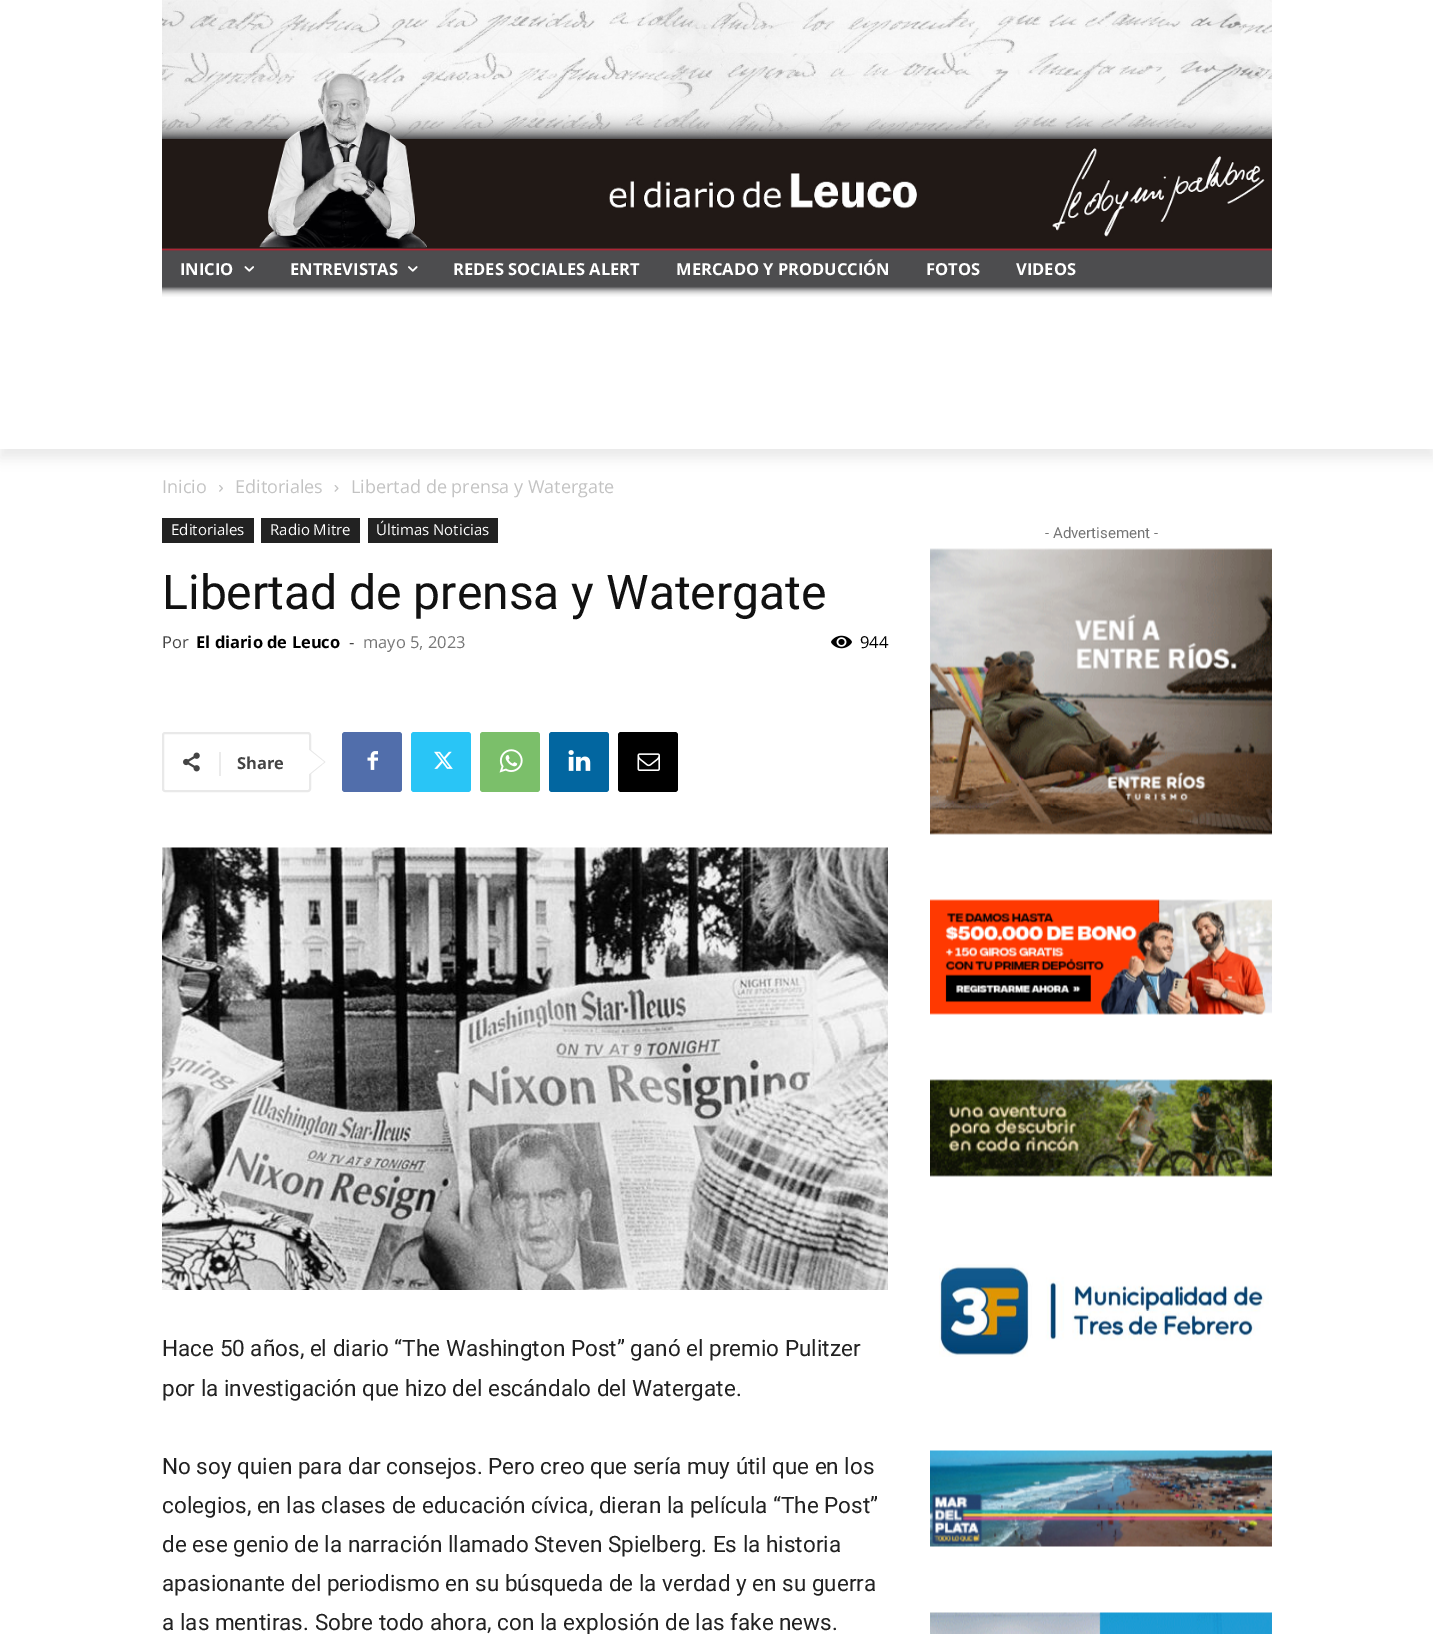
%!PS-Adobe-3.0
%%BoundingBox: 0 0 1433 1634
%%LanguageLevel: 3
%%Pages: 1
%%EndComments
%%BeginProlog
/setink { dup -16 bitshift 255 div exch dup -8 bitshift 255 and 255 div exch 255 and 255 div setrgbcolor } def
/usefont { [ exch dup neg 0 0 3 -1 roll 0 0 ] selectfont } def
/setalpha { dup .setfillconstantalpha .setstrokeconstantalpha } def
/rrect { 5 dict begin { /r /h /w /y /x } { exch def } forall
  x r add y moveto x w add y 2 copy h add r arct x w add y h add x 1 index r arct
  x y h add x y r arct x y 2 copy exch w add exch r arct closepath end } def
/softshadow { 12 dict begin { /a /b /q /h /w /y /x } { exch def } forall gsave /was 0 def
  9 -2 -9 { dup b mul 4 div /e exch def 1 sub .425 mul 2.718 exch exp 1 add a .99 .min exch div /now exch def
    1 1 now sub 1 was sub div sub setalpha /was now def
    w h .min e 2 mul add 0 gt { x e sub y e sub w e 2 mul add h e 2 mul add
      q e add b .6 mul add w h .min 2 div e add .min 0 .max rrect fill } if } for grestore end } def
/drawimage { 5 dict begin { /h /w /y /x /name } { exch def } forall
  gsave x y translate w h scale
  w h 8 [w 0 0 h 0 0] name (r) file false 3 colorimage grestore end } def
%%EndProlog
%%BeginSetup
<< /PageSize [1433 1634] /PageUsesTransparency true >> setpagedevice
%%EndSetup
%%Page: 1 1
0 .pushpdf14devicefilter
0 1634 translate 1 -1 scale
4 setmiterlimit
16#FFFFFF setink
0 0 1433 1634 rectfill
(img1.raw) 162 0 1110 297 drawimage
gsave
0 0 moveto 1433 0 lineto 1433 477 lineto 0 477 lineto closepath 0 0 moveto 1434 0 lineto 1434 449 lineto 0 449 lineto closepath eoclip newpath
16#000000 setink
0 9 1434 449 0 6 0.08 softshadow
grestore
/OpenSans-Bold 16.5 usefont
180 275 moveto (INICIO) show
(img2.raw) 244 266 10 6 drawimage
290 275 moveto (ENTREVISTAS) show
(img3.raw) 408 266 10 6 drawimage
[
    [(REDES SOCIALES ALERT) 453 275]
    [(MERCADO Y PRODUCCIÓN) 676 275]
    [(FOTOS) 926 275]
    [(VIDEOS) 1016 275]
] { aload pop moveto show } forall
/OpenSans-Regular 18 usefont
16#C3C3C3 setink
162 493 moveto (Inicio) show
(img4.raw) 219 485 4 7 drawimage
235 493 moveto (Editoriales) show
(img5.raw) 334 485 5 7 drawimage
351 493 moveto (Libertad de prensa y Watergate) show
16#222222 setink
162 518 92 25 rectfill
/OpenSans-Regular 15 usefont
16#FFFFFF setink
171 535 moveto (Editoriales) show
16#222222 setink
261 518 99 25 rectfill
16#FFFFFF setink
270 535 moveto (Radio Mitre) show
16#222222 setink
368 518 130 25 rectfill
16#FFFFFF setink
376 535 moveto (Últimas Noticias) show
/Roboto-Regular 48 usefont
16#111111 setink
162 609 moveto (Libertad de prensa y Watergate) show
/OpenSans-Regular 16.5 usefont
16#444444 setink
162 648 moveto (Por) show
/OpenSans-Bold 16.5 usefont
16#000000 setink
196 648 moveto (El diario de Leuco) show
/OpenSans-Regular 16.5 usefont
16#444444 setink
349 648 moveto (-) show
16#767676 setink
363 648 moveto (mayo 5, 2023) show
(img6.raw) 831 635 21 14 drawimage
16#000000 setink
860 648 moveto (944) show
16#E9E9E9 setink
2 setlinewidth
163 733 147 58 2 rrect stroke
309 775.5 moveto 309 748.5 lineto 325.5 762 lineto closepath fill
(img7.raw) 183 752 17 20 drawimage
16#EBEBEB setink
219 752 2 24 rectfill
/OpenSans-Bold 16.5 usefont
16#444444 setink
237 769 moveto (Share) show
16#FFFFFF setink
309 774 moveto 309 750 lineto 324 762 lineto closepath fill
16#516EAB setink
342 732 60 60 3 rrect fill
(img8.raw) 367 751 11 19 drawimage
16#29C5F6 setink
411 732 60 60 3 rrect fill
(img9.raw) 434 751 19 18 drawimage
16#7BBF6A setink
480 732 60 60 3 rrect fill
(img10.raw) 499 749 24 24 drawimage
16#0266A0 setink
549 732 60 60 3 rrect fill
(img11.raw) 568 750 23 21 drawimage
16#000000 setink
618 732 60 60 3 rrect fill
(img12.raw) 637 753 23 18 drawimage
(img13.raw) 162 847 726 443 drawimage
/Roboto-Regular 22.5 usefont
16#222222 setink
[
    [(Hace 50 años, el diario “The Washington Post” ganó el premio Pulitzer) 162 1356]
    [(por la investigación que hizo del escándalo del Watergate.) 162 1396]
    [(No soy quien para dar consejos. Pero creo que sería muy útil que en los) 162 1474]
    [(colegios, en las clases de educación cívica, dieran la película “The Post”) 162 1513]
    [(de ese genio de la narración llamado Steven Spielberg. Es la historia) 162 1552]
    [(apasionante del periodismo en su búsqueda de la verdad y en su guerra) 162 1591]
    [(a las mentiras. Sobre todo ahora, con la explosión de las fake news.) 162 1630]
] { aload pop moveto show } forall
/Roboto-Regular 15 usefont
16#767676 setink
1045 538 moveto (- Advertisement -) show
(img14.raw) 930 548 342 287 drawimage
(img15.raw) 930 899 342 116 drawimage
(img16.raw) 930 1079 342 98 drawimage
(img17.raw) 939 1264 330 93 drawimage
(img18.raw) 930 1450 342 97 drawimage
(img19.raw) 930 1612 342 22 drawimage
.poppdf14devicefilter showpage
%%EOF
